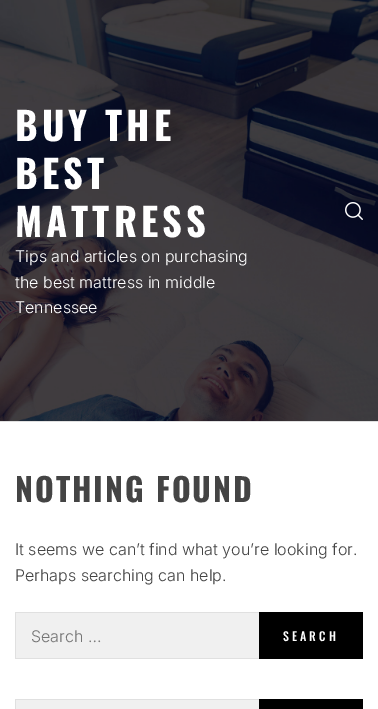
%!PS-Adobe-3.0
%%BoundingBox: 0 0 378 709
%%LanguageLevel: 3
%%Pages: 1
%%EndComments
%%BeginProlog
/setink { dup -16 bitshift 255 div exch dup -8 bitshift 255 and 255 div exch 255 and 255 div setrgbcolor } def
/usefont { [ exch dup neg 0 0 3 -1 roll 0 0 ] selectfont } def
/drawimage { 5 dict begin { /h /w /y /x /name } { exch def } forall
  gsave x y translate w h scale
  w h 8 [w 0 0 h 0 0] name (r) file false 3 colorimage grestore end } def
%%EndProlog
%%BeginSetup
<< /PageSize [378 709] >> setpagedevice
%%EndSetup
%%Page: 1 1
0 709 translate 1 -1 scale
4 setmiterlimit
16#FFFFFF setink
0 0 378 709 rectfill
(img1.raw) 0 0 378 421 drawimage
16#E0E0E0 setink
0 421 378 1 rectfill
/Oswald-Bold 38.5 usefont
16#FFFFFF setink
15 141 moveto 4 0 (BUY THE) ashow
15 189 moveto 4 0 (BEST) ashow
15 237 moveto 4 0 (MATTRESS) ashow
/Inter-Light 16 usefont
[
    [(Tips and articles on purchasing) 15 262]
    [(the best mattress in middle) 15 288]
    [(Tennessee) 15 313]
] { aload pop moveto show } forall
(img2.raw) 345 202 18 18 drawimage
/Oswald-Bold 32 usefont
16#444444 setink
15 502 moveto 2 0 (NOTHING FOUND) ashow
/Inter-Light 16 usefont
15 555 moveto (It seems we can’t find what you’re looking for.) show
15 581 moveto (Perhaps searching can help.) show
[
    [16 613 243 45 16#F0F0F0]
    [15 612 244 1 16#E0E0E0]
    [15 658 244 1 16#E0E0E0]
    [15 612 1 47 16#E0E0E0]
] { aload pop setink rectfill } forall
16#757575 setink
31 642 moveto (Search …) show
16#000000 setink
259 612 104 47 rectfill
/Oswald-Medium 12 usefont
16#FFFFFF setink
283 641 moveto 3 0 (SEARCH) ashow
[
    [16 700 243 9 16#F0F0F0]
    [15 699 244 1 16#E0E0E0]
    [15 699 1 10 16#E0E0E0]
    [259 699 104 10 16#000000]
] { aload pop setink rectfill } forall
showpage
%%EOF
